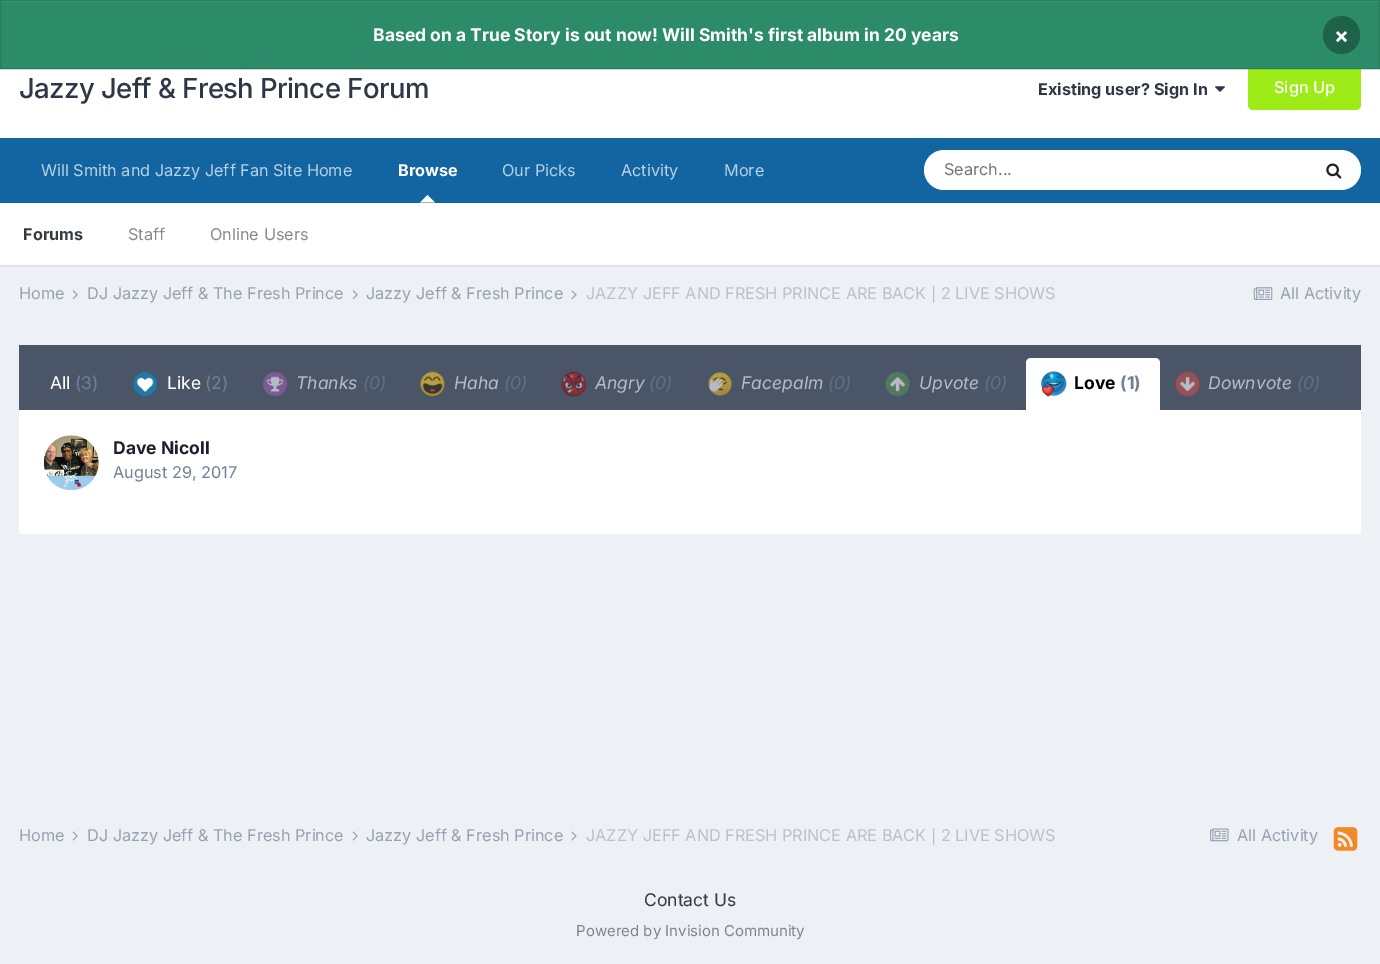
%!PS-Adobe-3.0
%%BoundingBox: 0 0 1380 964
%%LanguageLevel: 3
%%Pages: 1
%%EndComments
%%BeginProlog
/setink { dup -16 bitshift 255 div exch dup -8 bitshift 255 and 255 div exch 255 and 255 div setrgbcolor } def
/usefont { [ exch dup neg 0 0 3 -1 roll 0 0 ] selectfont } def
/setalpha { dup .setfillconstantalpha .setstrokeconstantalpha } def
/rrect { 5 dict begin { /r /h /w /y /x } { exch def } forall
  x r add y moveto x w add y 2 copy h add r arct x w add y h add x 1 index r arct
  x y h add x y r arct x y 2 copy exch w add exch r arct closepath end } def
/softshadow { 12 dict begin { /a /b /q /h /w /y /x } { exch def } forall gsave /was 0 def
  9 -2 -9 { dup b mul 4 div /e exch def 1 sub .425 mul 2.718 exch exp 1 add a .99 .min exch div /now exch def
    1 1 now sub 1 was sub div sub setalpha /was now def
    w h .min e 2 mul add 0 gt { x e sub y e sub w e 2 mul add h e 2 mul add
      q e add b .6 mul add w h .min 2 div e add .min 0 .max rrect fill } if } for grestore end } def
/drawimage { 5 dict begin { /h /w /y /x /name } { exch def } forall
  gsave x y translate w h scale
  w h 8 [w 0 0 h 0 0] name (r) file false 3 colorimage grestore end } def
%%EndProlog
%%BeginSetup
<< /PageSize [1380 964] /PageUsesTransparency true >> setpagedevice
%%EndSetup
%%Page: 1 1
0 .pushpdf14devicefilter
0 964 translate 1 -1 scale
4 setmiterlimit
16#EDF0F4 setink
0 0 1380 964 rectfill
16#FFFFFF setink
0 69 1380 69 rectfill
16#9DEC17 setink
1248 66 113 44 5 rrect fill
16#2C8C69 setink
1 2 1378 66 rectfill
16#419878 setink
1 1 1378 1 rectfill
16#287E5F setink
0.5 0.5 1379 68 rectstroke
/Inter-Bold 17.5 usefont
16#FFFFFF setink
373 41 moveto (Based on a True Story is out now! Will Smith's first album in 20 years) show
16#1F624A setink
1323 16 37 38 18.5 rrect fill
/Inter-Bold 22 usefont
16#FFFFFF setink
1334 43 moveto (×) show
/Inter-Medium 27.5 usefont
16#2D3748 setink
19 98 moveto -0.6 0 (Jazzy Jeff & Fresh Prince Forum) ashow
/Inter-Bold 16.25 usefont
1038 95 moveto (Existing user? Sign In) show
(img1.raw) 1215 86 10 6 drawimage
/Inter-Medium 16.25 usefont
16#FFFFFF setink
1274 93 moveto (Sign Up) show
16#1265A1 setink
0 138 1380 65 rectfill
/Inter-Regular 16.25 usefont
16#B8D1E3 setink
[
    [(Will Smith and Jazzy Jeff Fan Site Home) 41 176]
    [(Our Picks) 502 176]
    [(Activity) 621 176]
] { aload pop moveto show } forall
/Inter-Bold 16.25 usefont
16#FFFFFF setink
398 176 moveto (Browse) show
16#000000 setink
0 204 1380 62 0 1 0.1 softshadow
16#FFFFFF setink
435 202.5 moveto 420 202.5 lineto 427.5 195 lineto closepath fill
0 203 1380 62 rectfill
16#353C41 setink
23 240 moveto (Forums) show
/Inter-Regular 16.25 usefont
16#868A8D setink
128 240 moveto (Staff) show
210 240 moveto (Online Users) show
16#B8D1E3 setink
724 176 moveto (More) show
16#FFFFFF setink
924 150 437 40 20 rrect fill
16#757575 setink
944 175 moveto (Search...) show
(img2.raw) 1326 163 16 16 drawimage
16#96A2B2 setink
19 299 moveto (Home) show
(img3.raw) 72 290 6 10 drawimage
87 299 moveto (DJ Jazzy Jeff & The Fresh Prince) show
(img3.raw) 352 290 6 10 drawimage
366 299 moveto (Jazzy Jeff & Fresh Prince) show
(img4.raw) 571 290 6 10 drawimage
gsave
586 286 469 19 rectclip
16#B9C1CD setink
586 299 moveto (JAZZY JEFF AND FRESH PRINCE ARE BACK | 2 LIVE SHOWS) show
grestore
(img5.raw) 1253 287 20 13 drawimage
1280 299 moveto (All Activity) show
16#4A5568 setink
19 345 1342 65 rectfill
/Inter-Regular 17.5 usefont
16#FFFFFF setink
50 389 moveto (All) show
16#718096 setink
75 389 moveto (\(3\)) show
(img6.raw) 132 371 26 26 drawimage
16#FFFFFF setink
167 389 moveto (Like) show
16#718096 setink
205 389 moveto (\(2\)) show
(img7.raw) 262 371 26 26 drawimage
/Inter-Italic 17.5 usefont
16#B7BBC3 setink
296 389 moveto (Thanks) show
16#616F84 setink
363 389 moveto (\(0\)) show
(img8.raw) 420 371 25 26 drawimage
16#B7BBC3 setink
454 389 moveto (Haha) show
16#616F84 setink
504 389 moveto (\(0\)) show
(img9.raw) 561 371 26 26 drawimage
16#B7BBC3 setink
595 389 moveto (Angry) show
16#616F84 setink
649 389 moveto (\(0\)) show
(img10.raw) 708 372 24 24 drawimage
16#B7BBC3 setink
741 389 moveto (Facepalm) show
16#616F84 setink
828 389 moveto (\(0\)) show
(img11.raw) 885 371 25 26 drawimage
16#B7BBC3 setink
919 389 moveto (Upvote) show
16#616F84 setink
984 389 moveto (\(0\)) show
16#FFFFFF setink
1031 358 moveto 1155 358 lineto 1158 358 1160 360 1160 363 curveto 1160 410 lineto 1026 410 lineto 1026 363 lineto 1026 360 1028 358 1031 358 curveto closepath fill
(img12.raw) 1041 371 26 26 drawimage
/Inter-Bold 17.5 usefont
16#000000 setink
1074 389 moveto (Love) show
16#718096 setink
1120 389 moveto (\(1\)) show
(img13.raw) 1175 371 25 26 drawimage
/Inter-Italic 17.5 usefont
16#B7BBC3 setink
1208 389 moveto (Downvote) show
16#616F84 setink
1297 389 moveto (\(0\)) show
16#FFFFFF setink
19 410 1342 124 rectfill
(img14.raw) 43 435 56 56 drawimage
/Inter-Bold 17.5 usefont
16#1A202C setink
113 454 moveto (Dave Nicoll) show
/Inter-Regular 16.25 usefont
16#718096 setink
113 478 moveto (August 29, 2017) show
16#96A2B2 setink
19 841 moveto (Home) show
(img15.raw) 72 831 6 10 drawimage
87 841 moveto (DJ Jazzy Jeff & The Fresh Prince) show
(img15.raw) 352 831 6 10 drawimage
366 841 moveto (Jazzy Jeff & Fresh Prince) show
(img16.raw) 571 831 6 10 drawimage
gsave
586 828 469 18 rectclip
16#B9C1CD setink
586 841 moveto (JAZZY JEFF AND FRESH PRINCE ARE BACK | 2 LIVE SHOWS) show
grestore
(img17.raw) 1210 828 19 14 drawimage
1237 841 moveto (All Activity) show
(img18.raw) 1333 827 25 24 drawimage
/Inter-Regular 17.5 usefont
16#353C41 setink
644 906 moveto (Contact Us) show
/Inter-Regular 15 usefont
16#7F8489 setink
576 936 moveto (Powered by Invision Community) show
.poppdf14devicefilter showpage
%%EOF
